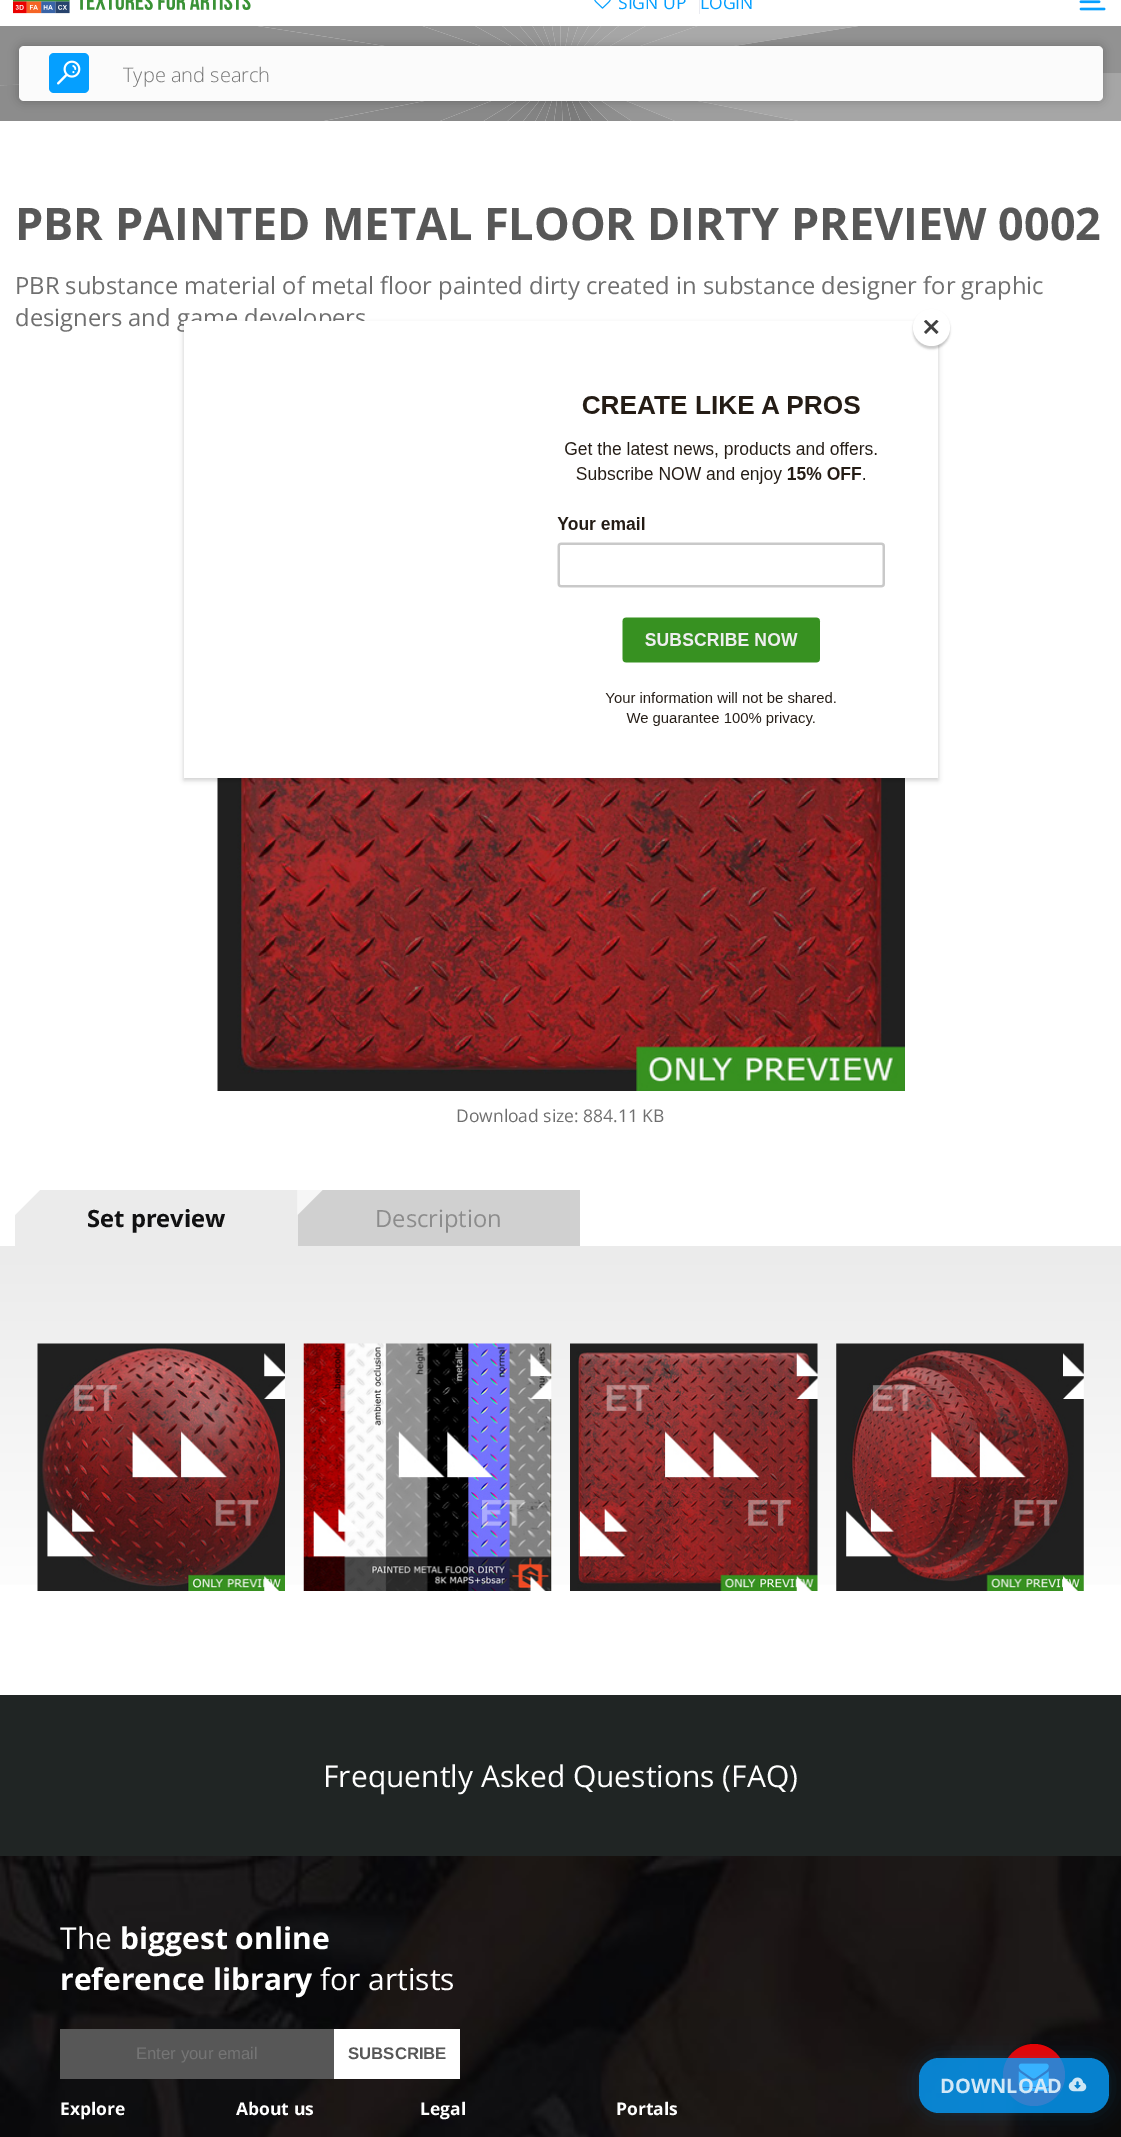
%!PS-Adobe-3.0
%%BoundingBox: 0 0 1121 2137
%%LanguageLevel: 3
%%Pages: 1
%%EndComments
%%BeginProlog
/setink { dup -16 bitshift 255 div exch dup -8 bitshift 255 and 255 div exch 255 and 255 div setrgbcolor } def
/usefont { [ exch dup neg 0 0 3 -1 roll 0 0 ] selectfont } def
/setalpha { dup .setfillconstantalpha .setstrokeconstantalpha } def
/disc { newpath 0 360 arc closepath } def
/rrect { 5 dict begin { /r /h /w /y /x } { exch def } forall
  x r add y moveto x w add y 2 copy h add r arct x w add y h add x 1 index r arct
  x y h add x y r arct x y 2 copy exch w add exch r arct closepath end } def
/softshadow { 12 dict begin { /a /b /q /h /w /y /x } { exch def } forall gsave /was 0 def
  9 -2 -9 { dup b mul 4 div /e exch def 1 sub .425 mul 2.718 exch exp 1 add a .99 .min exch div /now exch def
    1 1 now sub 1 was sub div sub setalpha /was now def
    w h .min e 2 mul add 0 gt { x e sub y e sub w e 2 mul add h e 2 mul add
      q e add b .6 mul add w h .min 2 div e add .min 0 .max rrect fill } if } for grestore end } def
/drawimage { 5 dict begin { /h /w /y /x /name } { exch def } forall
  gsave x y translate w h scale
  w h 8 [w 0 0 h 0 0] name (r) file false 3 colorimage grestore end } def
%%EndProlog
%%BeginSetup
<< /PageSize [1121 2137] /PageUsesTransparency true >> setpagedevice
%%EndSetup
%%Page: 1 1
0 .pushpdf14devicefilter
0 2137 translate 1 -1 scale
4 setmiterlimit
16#FFFFFF setink
0 0 1121 2137 rectfill
(img1.raw) 13 0 238 14 drawimage
(img2.raw) 594 0 17 9 drawimage
16#EAEBF1 setink
699 0 1 14 rectfill
/OpenSans-Regular 17.5 usefont
16#059FFF setink
618 9 moveto (SIGN UP) show
700 9 moveto (LOGIN) show
(img3.raw) 1079 0 27 11 drawimage
(img4.raw) 0 26 1121 95 drawimage
16#000000 setink
19 46 1084 55 5 5 0.25 softshadow
16#FBFBFB setink
19 46 1084 55 5 rrect fill
16#059FFF setink
49 53 40 40 5 rrect fill
(img5.raw) 57 60 24 25 drawimage
/OpenSans-Light 20 usefont
16#757575 setink
123 82 moveto (Type and search) show
/OpenSans-Bold 45 usefont
16#575757 setink
15 240 moveto (PBR PAINTED METAL FLOOR DIRTY PREVIEW 0002) show
/OpenSans-Regular 23.75 usefont
16#6F6F6F setink
15 294 moveto (PBR substance material of metal floor painted dirty created in substance designer for graphic) show
15 326 moveto (designers and game developers) show
(img6.raw) 217 778 688 313 drawimage
/OpenSans-Regular 17.5 usefont
456 1122 moveto (Download size: 884.11 KB) show
gsave 0 1246 moveto 1121 1246 lineto 1121 1585 lineto 0 1585 lineto closepath clip newpath
<< /ShadingType 2 /ColorSpace /DeviceRGB /Coords [561 1246 561 1633] /Extend [true true] /Function << /FunctionType 2 /Domain [0 1] /C0 [0.922 0.922 0.922] /C1 [1 1 1] /N 1 >> >> shfill grestore
16#EBEBEB setink
15 1190 283 56 rectfill
16#FFFFFF setink
15 1190 moveto 40 1190 lineto 15 1215 lineto closepath fill
/OpenSans-Bold 23.75 usefont
16#111112 setink
87 1227 moveto (Set preview) show
16#D0D0D0 setink
298 1190 282 56 rectfill
0.8 setalpha
16#FFFFFF setink
297.5 1190 moveto 322.5 1190 lineto 297.5 1215 lineto closepath fill
/OpenSans-Regular 23.75 usefont
1 setalpha
16#8C8C8C setink
375 1227 moveto (Description) show
(img7.raw) 37 1343 248 248 drawimage
(img8.raw) 303 1343 249 248 drawimage
(img9.raw) 570 1343 248 248 drawimage
(img10.raw) 836 1343 248 248 drawimage
(img13.raw) 0 1856 1121 281 drawimage
16#000000 setink
1003 2044 62 62 31 3 0.35 softshadow
16#EA0100 setink
1034 2075 31 disc fill
(img14.raw) 1018 2063 31 25 drawimage
16#FFFFFF setink
1019 2088 30 3 rectfill
gsave
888 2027 moveto 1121 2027 lineto 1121 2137 lineto 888 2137 lineto closepath 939 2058 moveto 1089 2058 lineto 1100 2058 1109 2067 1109 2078 curveto 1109 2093 lineto 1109 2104 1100 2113 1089 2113 curveto 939 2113 lineto 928 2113 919 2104 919 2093 curveto 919 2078 lineto 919 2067 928 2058 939 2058 curveto closepath eoclip newpath
16#0896EE setink
919 2058 190 55 20 10 0.19 softshadow
grestore
0.8 setalpha
16#059FFF setink
919 2058 190 55 20 rrect fill
/OpenSans-Bold 20 usefont
1 setalpha
16#D2E8F7 setink
940 2093 moveto (DOWNLOAD) show
(img11.raw) 1068 2077 19 15 drawimage
16#000000 setink
184 324 754 456 0 2.5 0.2 softshadow
(img12.raw) 184 321 754 457 drawimage
913 311 37 38 18.5 1 0.2 softshadow
16#FFFFFF setink
931.5 327.5 18.5 disc fill
16#414141 setink
936.5 320 moveto 938.5 321.5 lineto 926 334 lineto 924 332 lineto closepath fill
924 321.5 moveto 926 320 lineto 938.5 332 lineto 936.5 334 lineto closepath fill
16#202524 setink
0 1695 1121 161 rectfill
/OpenSans-Regular 30 usefont
16#FFFFFF setink
323 1787 moveto (Frequently Asked Questions \(FAQ\)) show
60 1949 moveto (The) show
/OpenSans-Bold 30 usefont
120 1949 moveto (biggest online) show
60 1990 moveto (reference library) show
/OpenSans-Regular 30 usefont
320 1990 moveto (for artists) show
16#575757 setink
60 2029 274 50 rectfill
/LiberationSans-Regular 16.75 usefont
16#757575 setink
136 2059 moveto (Enter your email) show
16#FFFFFF setink
334 2029 126 50 rectfill
/LiberationSans-Bold 16.75 usefont
16#575757 setink
348 2059 moveto (SUBSCRIBE) show
/OpenSans-Bold 17.5 usefont
16#FFFFFF setink
[
    [(Explore) 60 2115]
    [(About us) 236 2115]
    [(Legal) 420 2115]
    [(Portals) 616 2115]
] { aload pop moveto show } forall
.poppdf14devicefilter showpage
%%EOF
